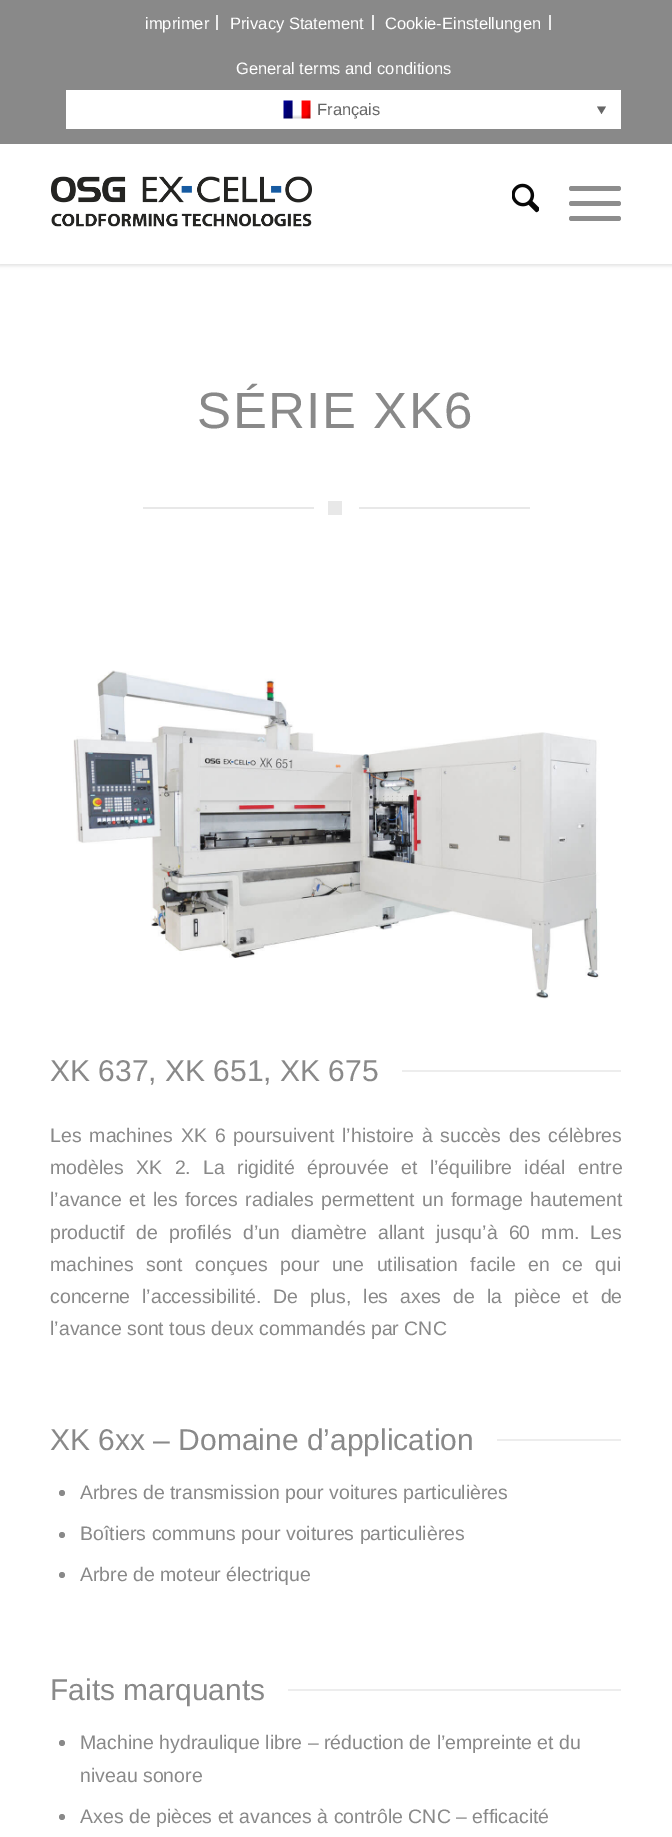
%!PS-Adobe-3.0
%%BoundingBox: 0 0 672 1837
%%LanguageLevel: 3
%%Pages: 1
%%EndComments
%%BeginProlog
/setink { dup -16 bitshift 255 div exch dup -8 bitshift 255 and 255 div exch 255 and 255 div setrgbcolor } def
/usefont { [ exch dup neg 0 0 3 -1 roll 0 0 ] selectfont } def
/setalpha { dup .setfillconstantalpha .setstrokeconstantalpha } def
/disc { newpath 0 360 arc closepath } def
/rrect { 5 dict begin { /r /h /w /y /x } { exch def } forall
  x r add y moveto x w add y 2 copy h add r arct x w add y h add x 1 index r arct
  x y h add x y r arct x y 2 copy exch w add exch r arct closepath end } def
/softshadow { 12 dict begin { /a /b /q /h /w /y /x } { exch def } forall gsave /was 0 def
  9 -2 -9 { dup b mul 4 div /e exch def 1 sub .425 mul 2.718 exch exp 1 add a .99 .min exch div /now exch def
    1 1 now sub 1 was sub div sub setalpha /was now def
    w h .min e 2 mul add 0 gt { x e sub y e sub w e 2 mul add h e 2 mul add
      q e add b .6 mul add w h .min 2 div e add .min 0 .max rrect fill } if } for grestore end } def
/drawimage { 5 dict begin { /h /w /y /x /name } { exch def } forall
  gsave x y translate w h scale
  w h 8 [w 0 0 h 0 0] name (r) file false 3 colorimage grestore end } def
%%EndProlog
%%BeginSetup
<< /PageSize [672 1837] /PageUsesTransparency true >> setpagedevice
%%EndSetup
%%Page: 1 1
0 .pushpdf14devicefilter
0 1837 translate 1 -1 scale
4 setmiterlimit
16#FFFFFF setink
0 0 672 1837 rectfill
16#000000 setink
-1 -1 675 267 0 1.5 0.1 softshadow
16#898989 setink
0 0 672 144 rectfill
16#EBEBEB setink
216 15 2 15 rectfill
/LiberationSans-Regular 16.5 usefont
16#FFFFFF setink
145 29 moveto (imprimer) show
16#EBEBEB setink
372 15 2 15 rectfill
16#FFFFFF setink
230 29 moveto (Privacy Statement) show
16#EBEBEB setink
549 15 2 15 rectfill
16#FFFFFF setink
385 29 moveto (Cookie-Einstellungen) show
236 74 moveto (General terms and conditions) show
66 90 555 39 rectfill
(img1.raw) 283 100 28 19 drawimage
16#666666 setink
317 115 moveto (Français) show
597 106.5 moveto 606 106.5 lineto 601.5 114 lineto closepath fill
16#FFFFFF setink
0 144 672 120 rectfill
(img2.raw) 51 176 261 51 drawimage
(img3.raw) 512 183 27 30 drawimage
16#8D8D8D setink
569 201 52 5 2.5 rrect fill
569 186 52 5 2.5 rrect fill
569 216 52 5 2.5 rrect fill
/LiberationSans-Regular 51 usefont
16#898989 setink
197 428 moveto 1.5 0 (SÉRIE XK6) ashow
[
    [143 507 171 2 16#E8E8E8]
    [328 501 14 14 16#E8E8E8]
    [359 507 171 2 16#E8E8E8]
] { aload pop setink rectfill } forall
(img4.raw) 73 670 527 329 drawimage
/LiberationSans-Regular 30 usefont
16#898989 setink
50 1081 moveto (XK 637, XK 651, XK 675) show
16#EDEDED setink
402 1070 219 2 rectfill
/LiberationSans-Regular 19.5 usefont
16#898989 setink
50 1142 moveto 2.5 0 32 (Les machines XK 6 poursuivent l’histoire à succès des célèbres) widthshow
50 1174 moveto 7 0 32 (modèles XK 2. La rigidité éprouvée et l’équilibre idéal entre) widthshow
50 1206 moveto 2 0 32 (l’avance et les forces radiales permettent un formage hautement) widthshow
50 1239 moveto 5.75 0 32 (productif de profilés d’un diamètre allant jusqu’à 60 mm. Les) widthshow
50 1271 moveto 7 0 32 (machines sont conçues pour une utilisation facile en ce qui) widthshow
50 1303 moveto 6.5 0 32 (concerne l’accessibilité. De plus, les axes de la pièce et de) widthshow
50 1335 moveto (l’avance sont tous deux commandés par CNC) show
/LiberationSans-Regular 30 usefont
50 1450 moveto (XK 6xx – Domaine d’application) show
16#EDEDED setink
497 1439 124 2 rectfill
16#898989 setink
62 1493 3 disc fill
/LiberationSans-Regular 19.5 usefont
80 1499 moveto (Arbres de transmission pour voitures particulières) show
62 1535 3 disc fill
80 1540 moveto (Boîtiers communs pour voitures particulières) show
62 1575 3 disc fill
80 1581 moveto (Arbre de moteur électrique) show
/LiberationSans-Regular 30 usefont
50 1700 moveto (Faits marquants) show
16#EDEDED setink
288 1689 333 2 rectfill
16#898989 setink
62 1743 3 disc fill
/LiberationSans-Regular 19.5 usefont
80 1749 moveto (Machine hydraulique libre – réduction de l’empreinte et du) show
80 1782 moveto (niveau sonore) show
62 1817 3 disc fill
80 1823 moveto (Axes de pièces et avances à contrôle CNC – efficacité) show
.poppdf14devicefilter showpage
%%EOF
